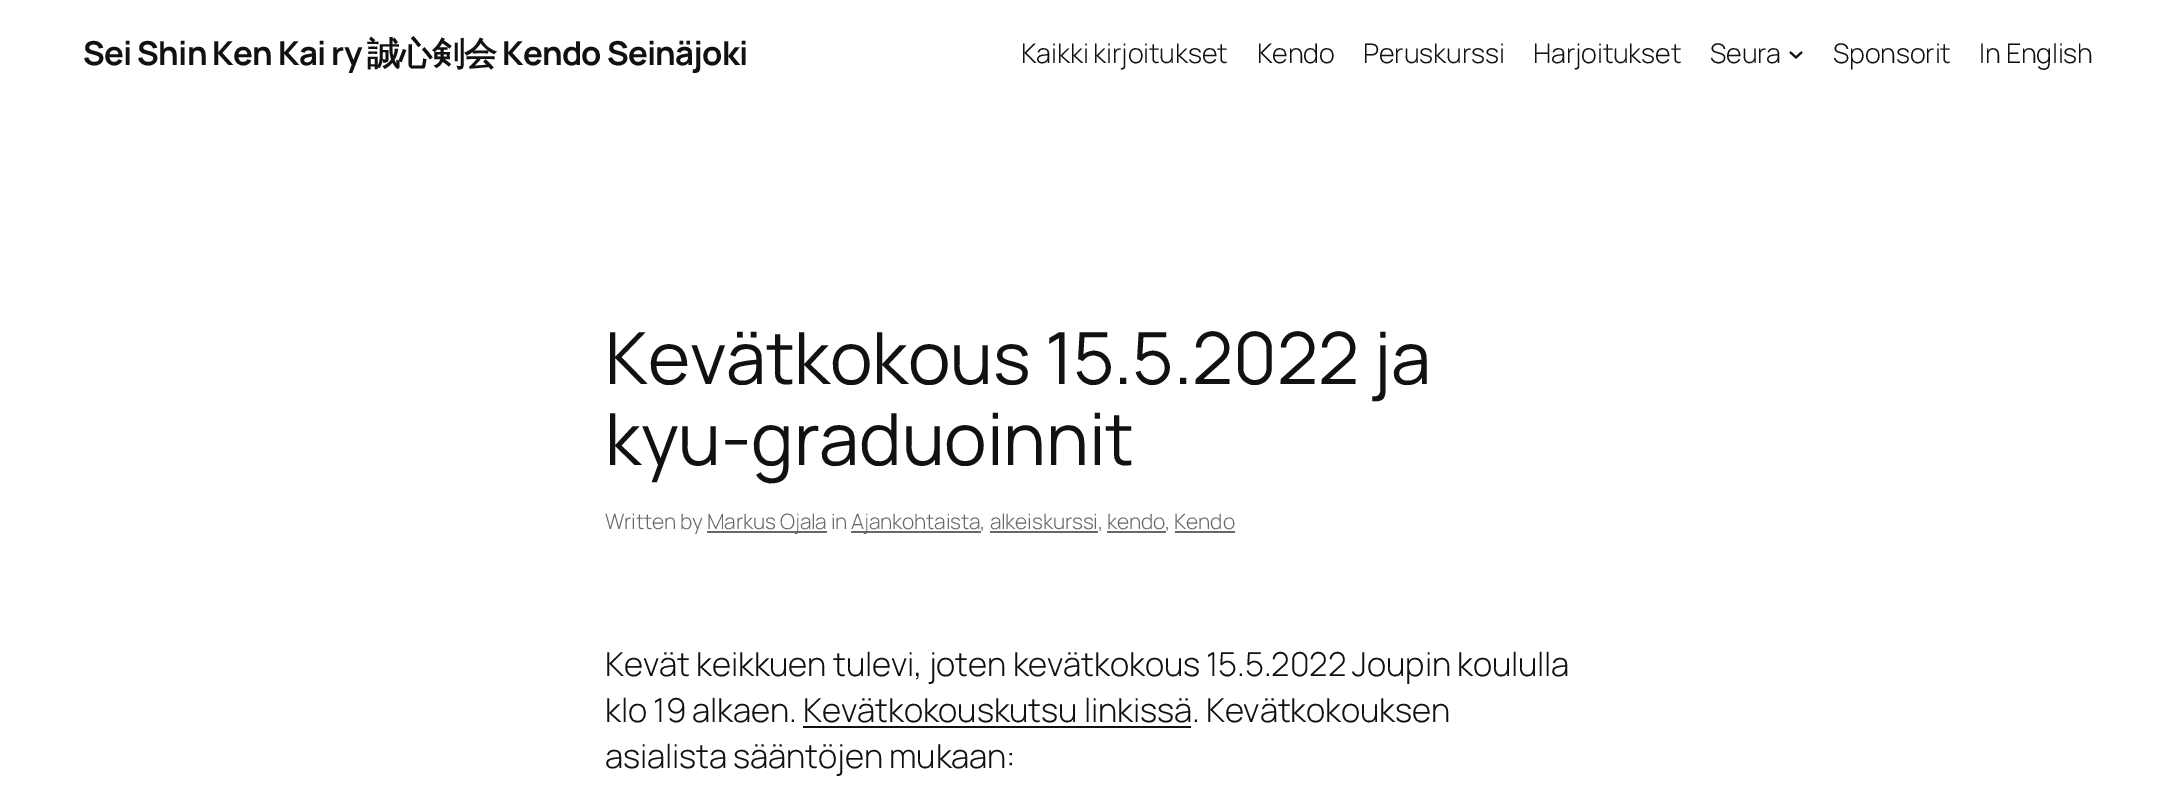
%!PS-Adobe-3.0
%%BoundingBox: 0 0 2176 802
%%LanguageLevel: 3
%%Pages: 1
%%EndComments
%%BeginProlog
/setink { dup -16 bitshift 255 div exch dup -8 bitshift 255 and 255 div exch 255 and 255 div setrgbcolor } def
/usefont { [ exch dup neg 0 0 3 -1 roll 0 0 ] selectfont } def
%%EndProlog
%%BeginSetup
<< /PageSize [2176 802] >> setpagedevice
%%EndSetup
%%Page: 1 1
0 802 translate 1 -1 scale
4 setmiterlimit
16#FFFFFF setink
0 0 2176 802 rectfill
/Manrope-Bold 33 usefont
16#111111 setink
83 65 moveto -0.75 0 (Sei Shin Ken Kai ry) ashow
/WenQuanYiZenHei-Bold 33 usefont
367 65 moveto -0.75 0 (誠心剣会) ashow
/Manrope-Bold 33 usefont
502 65 moveto -0.75 0 (Kendo Seinäjoki) ashow
/Manrope-Light 27 usefont
1021 63 moveto -0.15 0 (Kaikki kirjoitukset) ashow
1257 63 moveto -0.15 0 (Kendo) ashow
1363 63 moveto -0.15 0 (Peruskurssi) ashow
1533 63 moveto -0.15 0 (Harjoitukset) ashow
1710 63 moveto -0.15 0 (Seura) ashow
2 setlinewidth
1790 52 moveto 1796 57.5 lineto 1802 52 lineto stroke
1833 63 moveto -0.15 0 (Sponsorit) ashow
1979 63 moveto -0.15 0 (In English) ashow
/Manrope-Regular 72 usefont
605 384 moveto -0.15 0 (Kevätkokous 15.5.2022 ja) ashow
605 465 moveto -0.15 0 (kyu-graduoinnit) ashow
/Manrope-Light 21 usefont
16#686868 setink
605 529 moveto -0.15 0 (Written by) ashow
707 531 120 2 rectfill
707 529 moveto -0.15 0 (Markus Ojala in) ashow
851 531 130 2 rectfill
851 529 moveto -0.15 0 (Ajankohtaista, alkeiskurssi, kendo, Kendo) ashow
[
    [990 531 108 2 16#686868]
    [1107 531 59 2 16#686868]
    [1175 531 60 2 16#686868]
] { aload pop setink rectfill } forall
/Manrope-Light 33 usefont
16#111111 setink
605 676 moveto -0.15 0 (Kevät keikkuen tulevi, joten kevätkokous 15.5.2022 Joupin koululla) ashow
605 722 moveto -0.15 0 (klo 19 alkaen. Kevätkokouskutsu linkissä. Kevätkokouksen) ashow
803 726 388 2 rectfill
605 768 moveto -0.15 0 (asialista sääntöjen mukaan:) ashow
showpage
%%EOF
